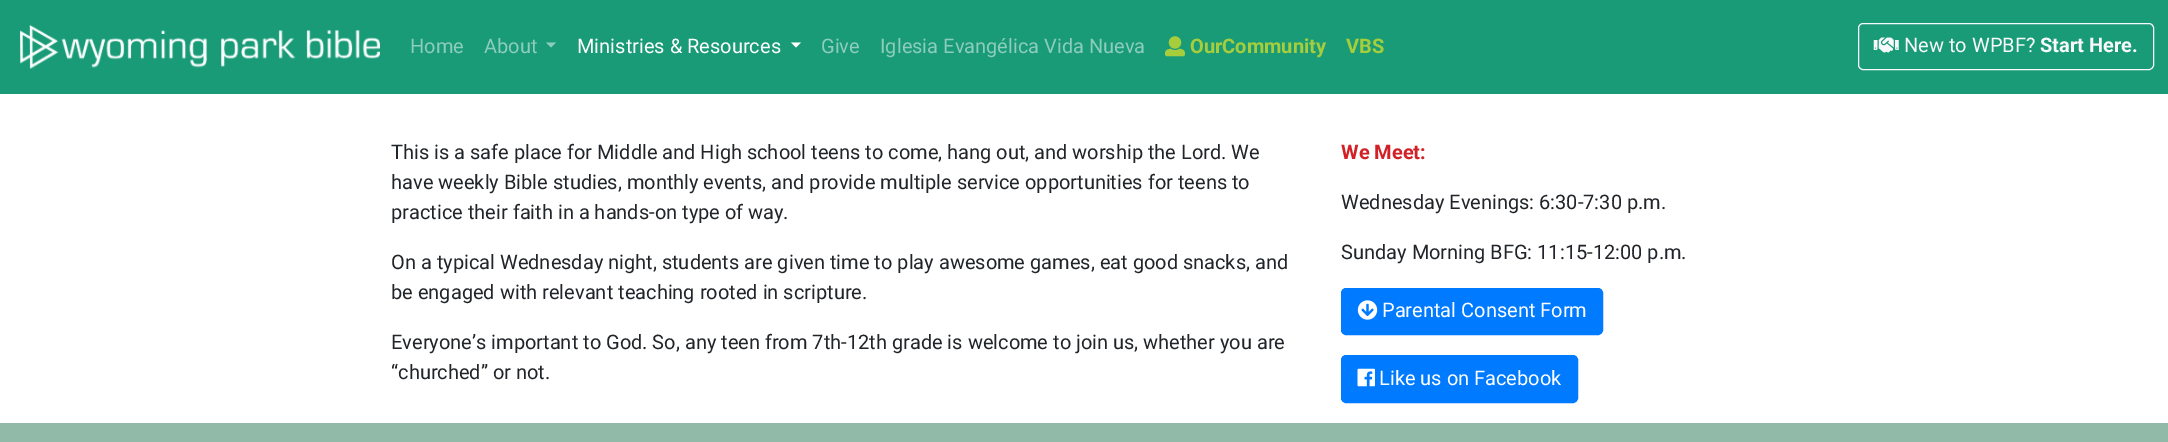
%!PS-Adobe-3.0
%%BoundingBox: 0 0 2168 442
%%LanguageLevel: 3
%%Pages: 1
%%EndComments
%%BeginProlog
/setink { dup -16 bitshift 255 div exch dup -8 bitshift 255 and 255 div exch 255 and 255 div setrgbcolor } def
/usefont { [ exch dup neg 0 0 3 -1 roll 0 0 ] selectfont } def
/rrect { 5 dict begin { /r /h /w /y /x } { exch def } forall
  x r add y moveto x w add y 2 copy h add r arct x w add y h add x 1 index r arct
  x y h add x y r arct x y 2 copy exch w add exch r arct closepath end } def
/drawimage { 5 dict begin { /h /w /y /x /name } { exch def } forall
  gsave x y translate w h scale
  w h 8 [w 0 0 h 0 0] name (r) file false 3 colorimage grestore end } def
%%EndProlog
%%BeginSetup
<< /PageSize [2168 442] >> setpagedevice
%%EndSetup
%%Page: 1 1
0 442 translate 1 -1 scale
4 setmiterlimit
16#FFFFFF setink
0 0 2168 442 rectfill
16#199B77 setink
0 0 2168 94 rectfill
(img1.raw) 20 25 360 44 drawimage
/Roboto-Regular 20 usefont
16#8CCDBB setink
410 53 moveto (Home) show
484 53 moveto (About) show
546 42.5 moveto 556 42.5 lineto 551 47.5 lineto closepath fill
16#FFFFFF setink
577 53 moveto (Ministries & Resources) show
791 42.5 moveto 801 42.5 lineto 796 47.5 lineto closepath fill
16#8CCDBB setink
821 53 moveto (Give) show
880 53 moveto (Iglesia Evangélica Vida Nueva) show
(img2.raw) 1165 36 20 21 drawimage
/Roboto-Bold 20 usefont
16#A6CE3C setink
1190 53 moveto (OurCommunity) show
1346 53 moveto (VBS) show
16#F8F9FA setink
1858.5 23.5 295 46 4.5 rrect stroke
(img3.raw) 1873 37 26 16 drawimage
/Roboto-Regular 20 usefont
1904 52 moveto (New to WPBF?) show
/Roboto-Bold 20 usefont
2040 52 moveto (Start Here.) show
/Roboto-Regular 20 usefont
16#212529 setink
[
    [(This is a safe place for Middle and High school teens to come, hang out, and worship the Lord. We) 391 159]
    [(have weekly Bible studies, monthly events, and provide multiple service opportunities for teens to) 391 189]
    [(practice their faith in a hands-on type of way.) 391 219]
    [(On a typical Wednesday night, students are given time to play awesome games, eat good snacks, and) 391 269]
    [(be engaged with relevant teaching rooted in scripture.) 391 299]
    [(Everyone’s important to God. So, any teen from 7th-12th grade is welcome to join us, whether you are) 391 349]
    [(“churched” or not.) 391 379]
] { aload pop moveto show } forall
/Roboto-Bold 20 usefont
16#D22026 setink
1341 159 moveto (We Meet:) show
/Roboto-Regular 20 usefont
16#212529 setink
1341 209 moveto (Wednesday Evenings: 6:30-7:30 p.m.) show
1341 259 moveto (Sunday Morning BFG: 11:15-12:00 p.m.) show
16#007BFF setink
1341.5 288.5 261 46 4.5 rrect gsave fill grestore
stroke
(img4.raw) 1357 300 21 20 drawimage
16#FFFFFF setink
1382 317 moveto (Parental Consent Form) show
16#007BFF setink
1341.5 355.5 236 47 4.5 rrect gsave fill grestore
stroke
(img5.raw) 1357 368 18 19 drawimage
16#FFFFFF setink
1379 385 moveto (Like us on Facebook) show
16#91BAA8 setink
0 423 2168 19 rectfill
showpage
%%EOF
